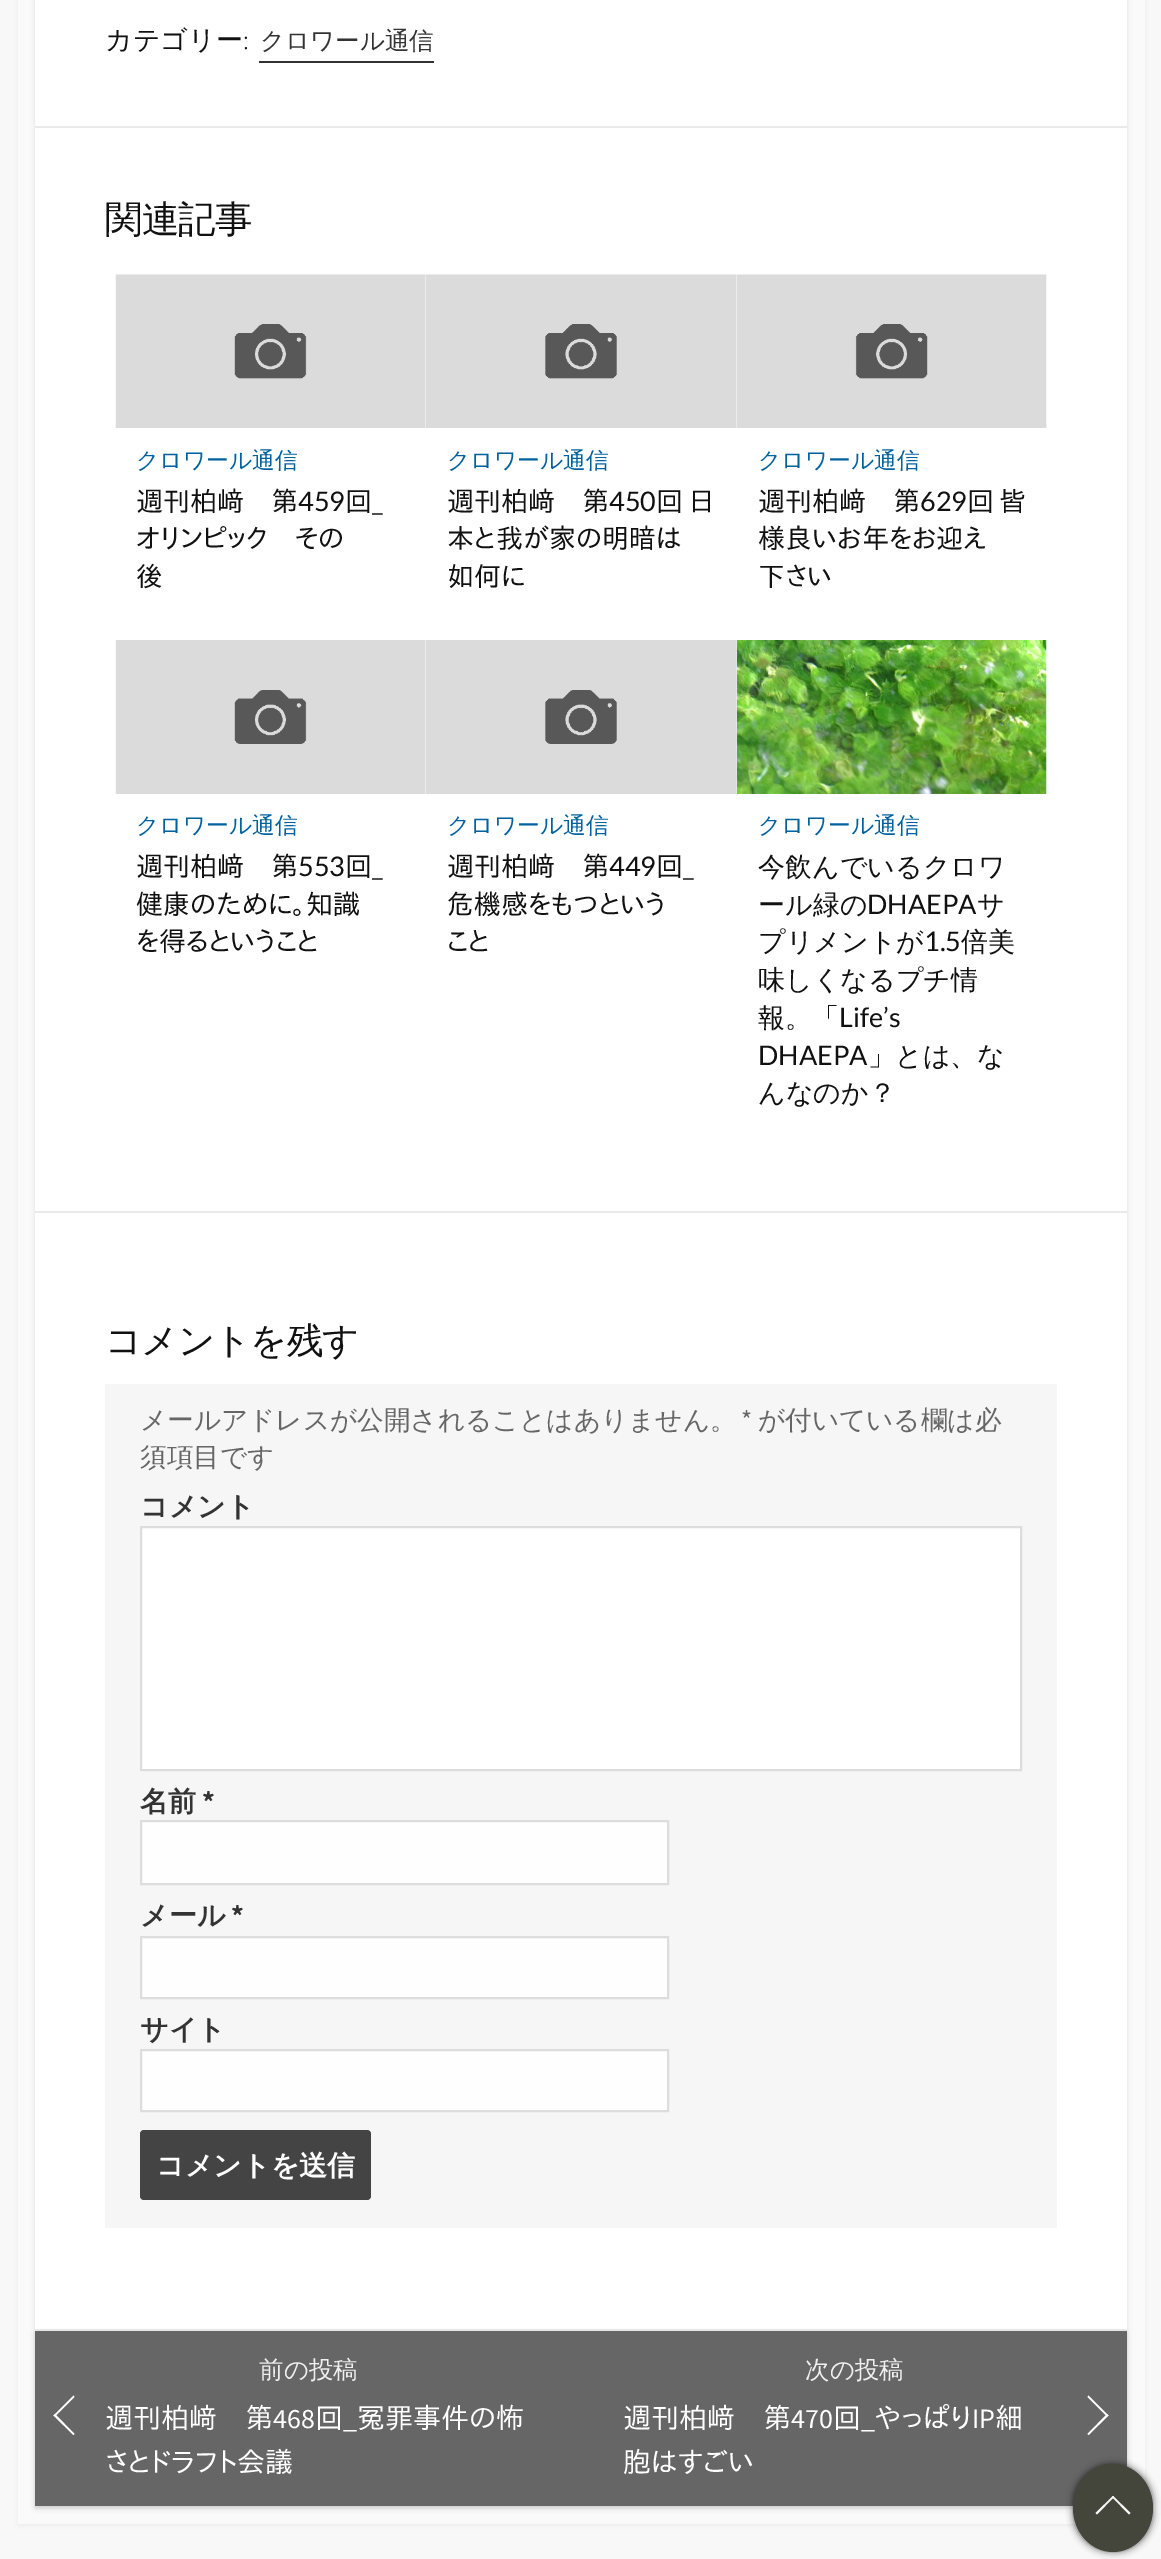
%!PS-Adobe-3.0
%%BoundingBox: 0 0 1161 2559
%%LanguageLevel: 3
%%Pages: 1
%%EndComments
%%BeginProlog
/setink { dup -16 bitshift 255 div exch dup -8 bitshift 255 and 255 div exch 255 and 255 div setrgbcolor } def
/usefont { [ exch dup neg 0 0 3 -1 roll 0 0 ] selectfont } def
/setalpha { dup .setfillconstantalpha .setstrokeconstantalpha } def
/rrect { 5 dict begin { /r /h /w /y /x } { exch def } forall
  x r add y moveto x w add y 2 copy h add r arct x w add y h add x 1 index r arct
  x y h add x y r arct x y 2 copy exch w add exch r arct closepath end } def
/softshadow { 12 dict begin { /a /b /q /h /w /y /x } { exch def } forall gsave /was 0 def
  9 -2 -9 { dup b mul 4 div /e exch def 1 sub .425 mul 2.718 exch exp 1 add a .99 .min exch div /now exch def
    1 1 now sub 1 was sub div sub setalpha /was now def
    w h .min e 2 mul add 0 gt { x e sub y e sub w e 2 mul add h e 2 mul add
      q e add b .6 mul add w h .min 2 div e add .min 0 .max rrect fill } if } for grestore end } def
/drawimage { 5 dict begin { /h /w /y /x /name } { exch def } forall
  gsave x y translate w h scale
  w h 8 [w 0 0 h 0 0] name (r) file false 3 colorimage grestore end } def
%%EndProlog
%%BeginSetup
<< /PageSize [1161 2559] /PageUsesTransparency true >> setpagedevice
%%EndSetup
%%Page: 1 1
0 .pushpdf14devicefilter
0 2559 translate 1 -1 scale
4 setmiterlimit
16#F8F8F8 setink
0 0 1161 2559 rectfill
16#000000 setink
18 -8 1127 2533 0 2.5 0.05 softshadow
16#FAFAFA setink
18 0 1127 2524 rectfill
16#000000 setink
35 -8 1092 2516 0 2.5 0.1 softshadow
16#FFFFFF setink
35 0 1092 2329 rectfill
16#EAEAEA setink
35 126 1092 2 rectfill
/WenQuanYiZenHei-Medium 27 usefont
16#111111 setink
105 49 moveto (カテゴリー) show
/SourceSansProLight-Light 27 usefont
243 49 moveto (:) show
16#333333 setink
259 61 175 2 rectfill
/WenQuanYiZenHei-Medium 24.5 usefont
260 49 moveto (クロワール通信) show
16#EAEAEA setink
35 1211 1092 2 rectfill
/WenQuanYiZenHei-Medium 37.5 usefont
16#111111 setink
105 232 moveto -1 0 (関連記事) ashow
(img1.raw) 115 274 310 154 drawimage
/WenQuanYiZenHei-Medium 22.75 usefont
16#00619F setink
136 468 moveto (クロワール通信) show
/IPAPGothic-Regular 27 usefont
16#111111 setink
136 511 moveto (週刊柏﨑　第) show
/Lato-Regular 27 usefont
298 511 moveto (459) show
/IPAPGothic-Regular 27 usefont
345 511 moveto (回) show
/Lato-Regular 27 usefont
372 511 moveto (_) show
/IPAPGothic-Regular 27 usefont
136 548 moveto (オリンピック　その) show
136 586 moveto (後) show
(img2.raw) 425 274 312 154 drawimage
/WenQuanYiZenHei-Medium 22.75 usefont
16#00619F setink
447 468 moveto (クロワール通信) show
/IPAPGothic-Regular 27 usefont
16#111111 setink
447 511 moveto (週刊柏﨑　第) show
/Lato-Regular 27 usefont
609 511 moveto (450) show
/IPAPGothic-Regular 27 usefont
656 511 moveto -2 0 32 (回 日) widthshow
447 548 moveto (本と我が家の明暗は) show
447 586 moveto (如何に) show
(img3.raw) 737 274 310 154 drawimage
/WenQuanYiZenHei-Medium 22.75 usefont
16#00619F setink
758 468 moveto (クロワール通信) show
/IPAPGothic-Regular 27 usefont
16#111111 setink
758 511 moveto (週刊柏﨑　第) show
/Lato-Regular 27 usefont
920 511 moveto (629) show
/IPAPGothic-Regular 27 usefont
[
    [(回) 967 511]
    [(皆) 999 511]
    [(様良いお年をお迎え) 758 548]
    [(下さい) 758 586]
] { aload pop moveto show } forall
(img4.raw) 115 640 310 154 drawimage
/WenQuanYiZenHei-Medium 22.75 usefont
16#00619F setink
136 833 moveto (クロワール通信) show
/IPAPGothic-Regular 27 usefont
16#111111 setink
136 876 moveto (週刊柏﨑　第) show
/Lato-Regular 27 usefont
298 876 moveto (553) show
/IPAPGothic-Regular 27 usefont
345 876 moveto (回) show
/Lato-Regular 27 usefont
372 876 moveto (_) show
/IPAPGothic-Regular 27 usefont
136 914 moveto (健康のために。知識) show
136 951 moveto (を得るということ) show
(img5.raw) 425 640 312 154 drawimage
/WenQuanYiZenHei-Medium 22.75 usefont
16#00619F setink
447 833 moveto (クロワール通信) show
/IPAPGothic-Regular 27 usefont
16#111111 setink
447 876 moveto (週刊柏﨑　第) show
/Lato-Regular 27 usefont
609 876 moveto (449) show
/IPAPGothic-Regular 27 usefont
656 876 moveto (回) show
/Lato-Regular 27 usefont
683 876 moveto (_) show
/IPAPGothic-Regular 27 usefont
447 914 moveto (危機感をもつという) show
447 951 moveto (こと) show
(img6.raw) 736 640 311 154 drawimage
/WenQuanYiZenHei-Medium 22.75 usefont
16#00619F setink
758 833 moveto (クロワール通信) show
/WenQuanYiZenHei-Medium 27 usefont
16#111111 setink
758 876 moveto (今飲んでいるクロワ) show
758 914 moveto (ール緑の) show
/Lato-Regular 27 usefont
867 914 moveto (DHAEPA) show
/WenQuanYiZenHei-Medium 27 usefont
977 914 moveto (サ) show
758 951 moveto (プリメントが) show
/Lato-Regular 27 usefont
924 951 moveto (1.5) show
/WenQuanYiZenHei-Medium 27 usefont
[
    [(倍美) 961 951]
    [(味しくなるプチ情) 758 989]
    [(報。「) 758 1027]
] { aload pop moveto show } forall
/Lato-Regular 27 usefont
839 1027 moveto (Life’s) show
758 1065 moveto (DHAEPA) show
/WenQuanYiZenHei-Medium 27 usefont
868 1065 moveto (」とは、な) show
758 1102 moveto (んなのか？) show
16#EAEAEA setink
35 2329 1092 2 rectfill
/WenQuanYiZenHei-Medium 36.5 usefont
16#111111 setink
105 1353 moveto -1 0 (コメントを残す) ashow
16#F6F6F6 setink
105 1384 952 844 rectfill
/WenQuanYiZenHei-Medium 26.6 usefont
16#666666 setink
140 1429 moveto (メールアドレスが公開されることはありません。) show
/SourceSansPro-Regular 26.6 usefont
741 1429 moveto (*) show
/WenQuanYiZenHei-Medium 26.6 usefont
758 1429 moveto (が付いている欄は必) show
140 1466 moveto (須項目です) show
/WenQuanYiZenHei-Bold 28 usefont
16#333333 setink
140 1516 moveto (コメント) show
16#FFFFFF setink
141 1527 moveto 1021 1527 lineto 1021 1770 lineto 141 1770 lineto closepath gsave fill grestore
16#DDDDDD setink
2 setlinewidth
stroke
16#333333 setink
140 1811 moveto (名前) show
/SourceSansPro-Bold 28 usefont
202 1811 moveto (*) show
16#FEFEFE setink
141 1821 moveto 668 1821 lineto 668 1884 lineto 141 1884 lineto closepath gsave fill grestore
16#DDDDDD setink
stroke
/WenQuanYiZenHei-Bold 28 usefont
16#333333 setink
140 1925 moveto (メール) show
/SourceSansPro-Bold 28 usefont
231 1925 moveto (*) show
16#FEFEFE setink
141 1937 moveto 668 1937 lineto 668 1998 lineto 141 1998 lineto closepath gsave fill grestore
16#DDDDDD setink
stroke
/WenQuanYiZenHei-Bold 28 usefont
16#333333 setink
140 2039 moveto (サイト) show
16#FEFEFE setink
141 2050 moveto 668 2050 lineto 668 2111 lineto 141 2111 lineto closepath gsave fill grestore
16#DDDDDD setink
stroke
16#444444 setink
140 2130 231 70 4 rrect fill
16#FFFFFF setink
156 2175 moveto (コメントを送信) show
16#000000 setink
35 2333 1092 175 0 2.5 0.1 softshadow
16#666666 setink
35 2331 1092 175 rectfill
/WenQuanYiZenHei-Medium 24.5 usefont
16#F0F0F0 setink
259 2378 moveto (前の投稿) show
16#FFFFFF setink
55 2414 moveto 74.5 2434 lineto 73.5 2435 lineto 53.5 2415.5 lineto closepath fill
73.5 2395.5 moveto 74.5 2397 lineto 55 2416.5 lineto 53.5 2415.5 lineto closepath fill
/IPAPGothic-Regular 28 usefont
105 2428 moveto (週刊柏﨑　第) show
/SourceSansPro-Regular 28 usefont
273 2428 moveto (468) show
/IPAPGothic-Regular 28 usefont
315 2428 moveto (回) show
357 2428 moveto (冤罪事件の怖) show
/SourceSansPro-Regular 28 usefont
343 2428 moveto (_) show
/IPAPGothic-Regular 28 usefont
105 2472 moveto (さとドラフト会議) show
/WenQuanYiZenHei-Medium 24.5 usefont
16#F0F0F0 setink
805 2378 moveto (次の投稿) show
/IPAPGothic-Regular 28 usefont
16#FFFFFF setink
623 2428 moveto (週刊柏﨑　第) show
/SourceSansPro-Regular 28 usefont
791 2428 moveto (470) show
/IPAPGothic-Regular 28 usefont
833 2428 moveto (回) show
875 2428 moveto (やっぱり) show
/SourceSansPro-Regular 28 usefont
972 2428 moveto (IP) show
/IPAPGothic-Regular 28 usefont
995 2428 moveto (細) show
/SourceSansPro-Regular 28 usefont
861 2428 moveto (_) show
/IPAPGothic-Regular 28 usefont
623 2472 moveto (胞はすごい) show
1088.5 2395.5 moveto 1108.5 2415.5 lineto 1107 2416.5 lineto 1087.5 2397 lineto closepath fill
1107 2414 moveto 1108.5 2415.5 lineto 1088.5 2435 lineto 1087.5 2434 lineto closepath fill
16#000000 setink
1073 2464 80 88 40 3.5 0.6 softshadow
16#44463B setink
1113 2464 moveto 1135 2464 1153 2483.5 1153 2508 curveto 1153 2532.5 1135 2552 1113 2552 curveto 1091 2552 1073 2532.5 1073 2508 curveto 1073 2483.5 1091 2464 1113 2464 curveto closepath fill
16#F7F7F7 setink
1113 2496 moveto 1130.5 2513 lineto 1129 2514.5 lineto 1112 2497 lineto closepath fill
1113 2496 moveto 1114 2497 lineto 1097 2514.5 lineto 1095.5 2513 lineto closepath fill
.poppdf14devicefilter showpage
%%EOF
